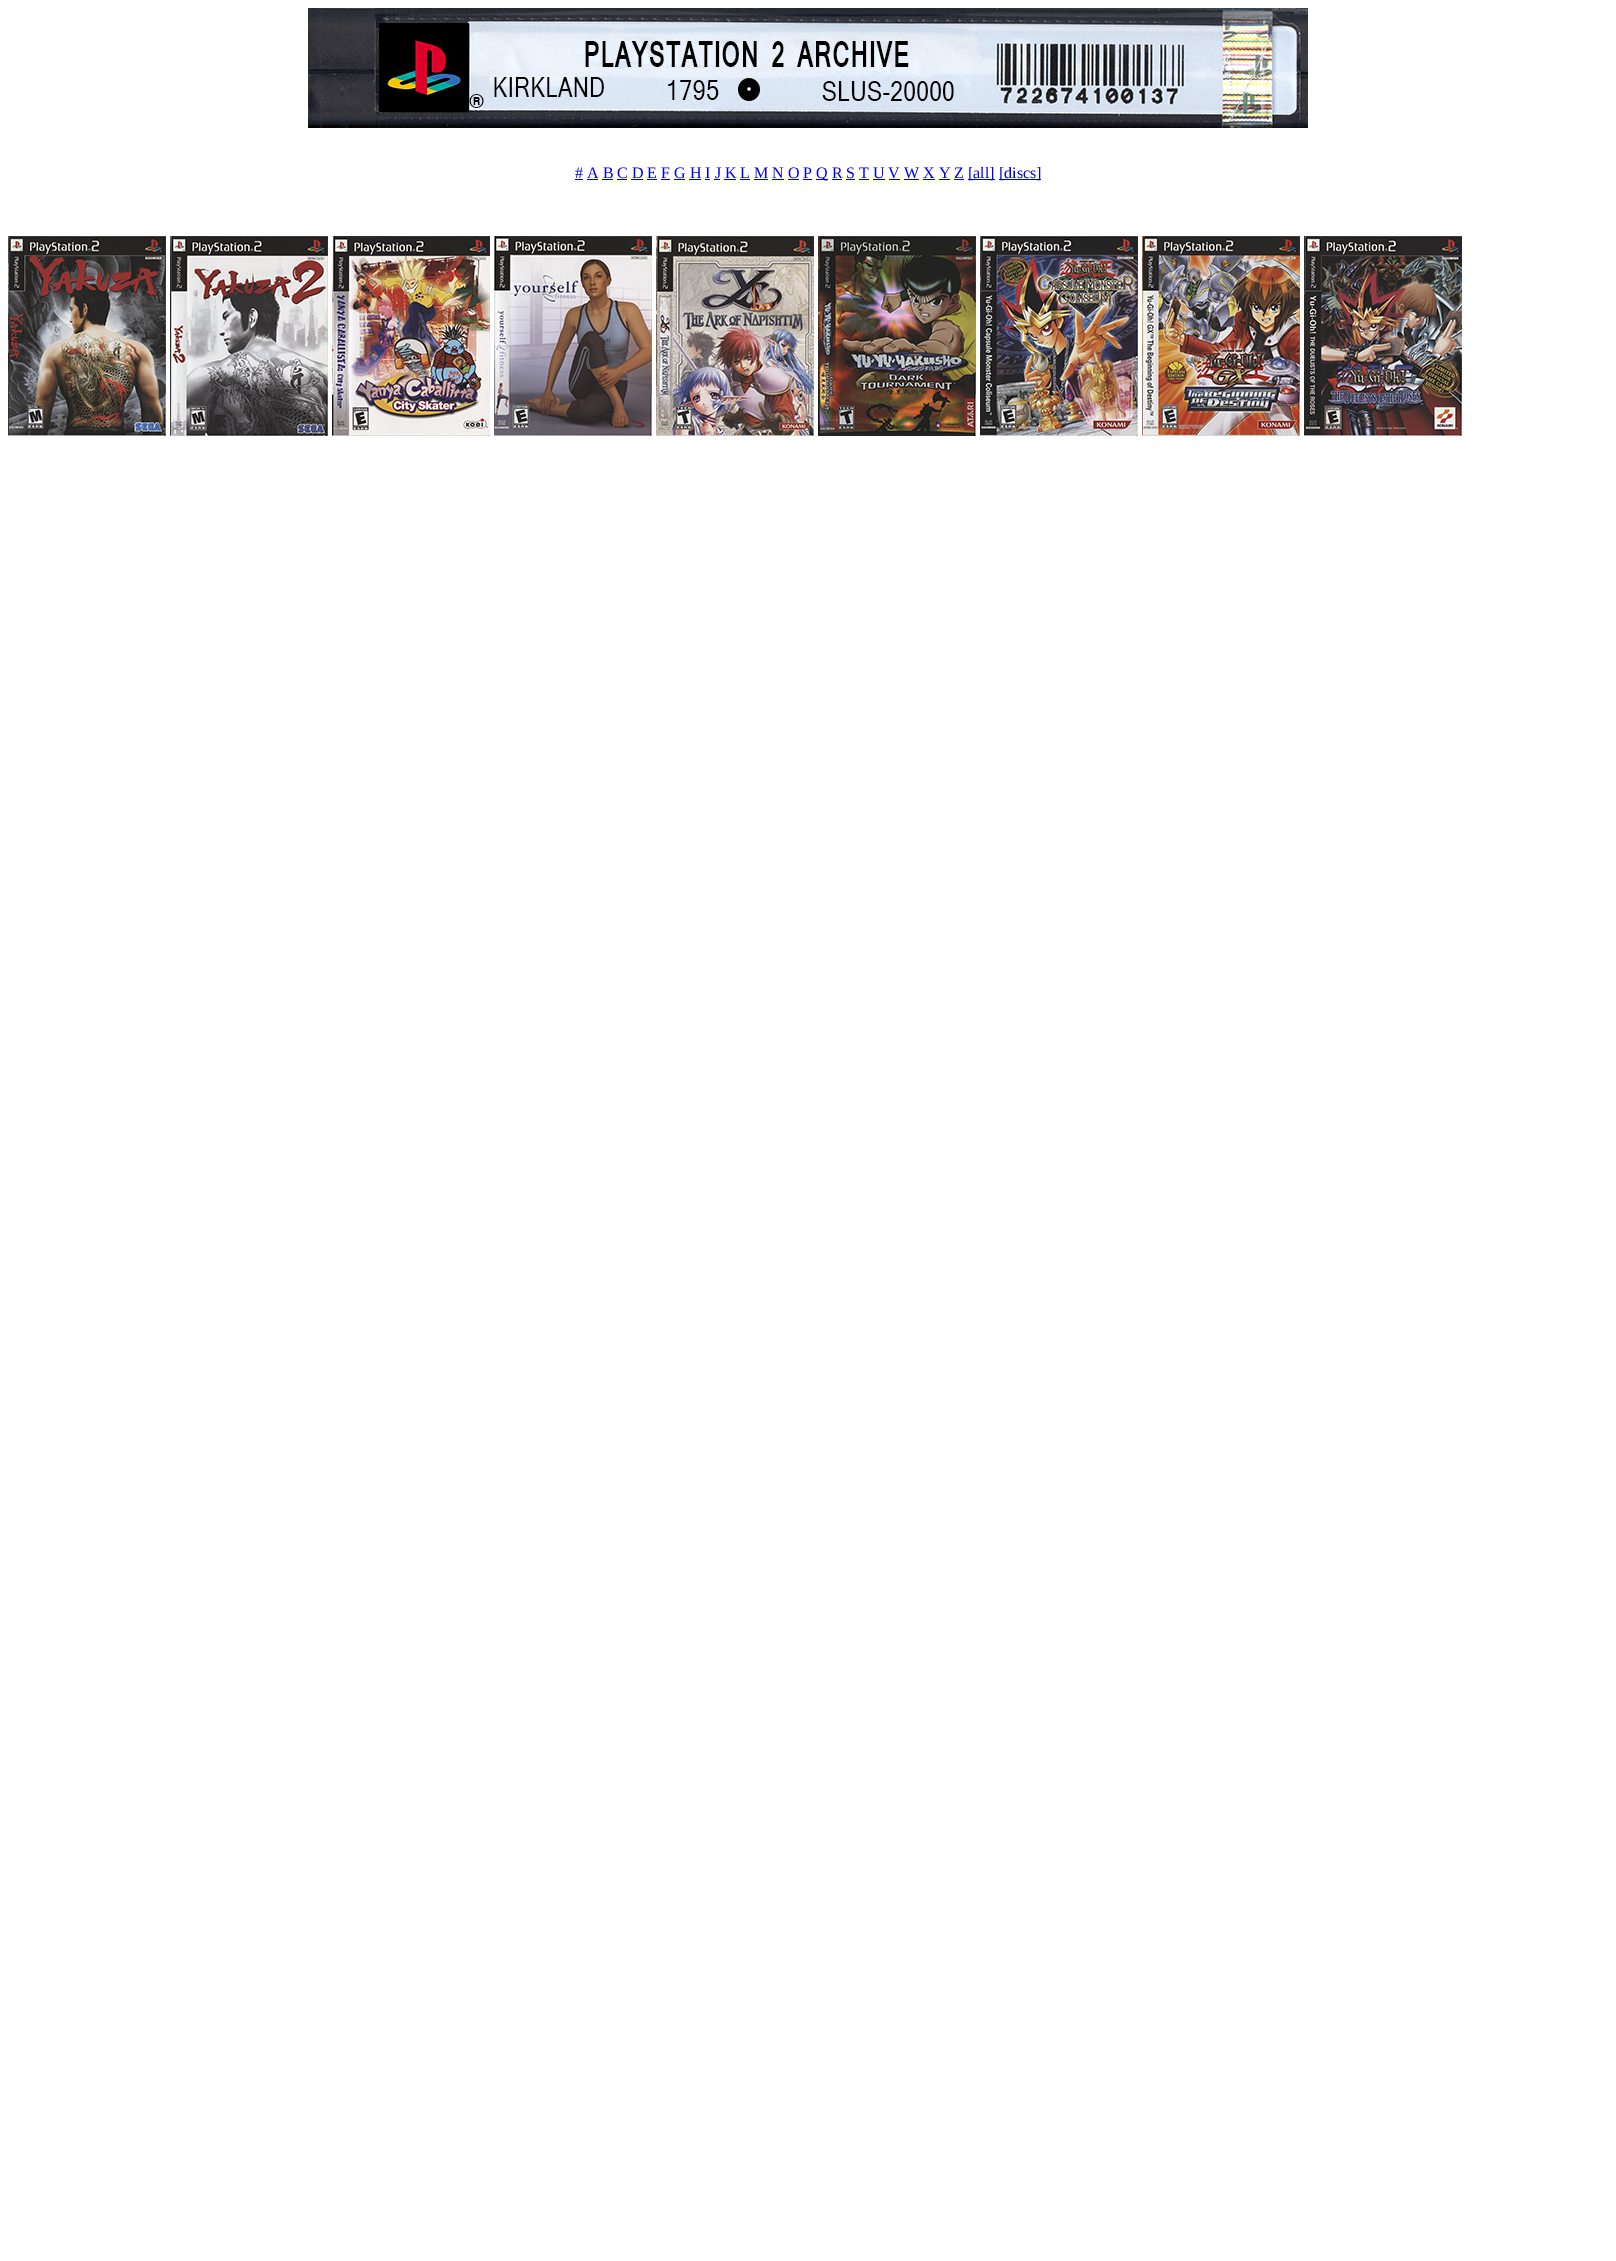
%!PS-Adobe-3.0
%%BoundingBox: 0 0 1616 2261
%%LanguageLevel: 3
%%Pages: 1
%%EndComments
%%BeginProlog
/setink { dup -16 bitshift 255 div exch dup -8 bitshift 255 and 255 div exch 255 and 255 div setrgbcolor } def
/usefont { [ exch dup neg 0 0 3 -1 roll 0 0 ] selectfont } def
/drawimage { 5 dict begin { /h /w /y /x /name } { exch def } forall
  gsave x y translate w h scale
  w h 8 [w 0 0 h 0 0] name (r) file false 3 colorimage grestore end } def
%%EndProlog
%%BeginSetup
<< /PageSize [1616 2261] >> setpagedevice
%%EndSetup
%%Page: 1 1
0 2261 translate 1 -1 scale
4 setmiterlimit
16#FFFFFF setink
0 0 1616 2261 rectfill
(img1.raw) 308 8 1000 120 drawimage
/LiberationSerif-Regular 16 usefont
16#0000EE setink
575 178 moveto (# A B C D E F G H I J K L M N O P) show
575 179 8 1 rectfill
816 179 12 1 rectfill
816 178 moveto (Q R S T U V W X Y Z) show
968 179 27 1 rectfill
968 178 moveto ([all]) show
999 179 42 1 rectfill
999 178 moveto ([discs]) show
[
    [587 179 11 1 16#0000EE]
    [602 179 11 1 16#0000EE]
    [617 179 10 1 16#0000EE]
    [631 179 12 1 16#0000EE]
    [647 179 10 1 16#0000EE]
    [661 179 9 1 16#0000EE]
    [674 179 11 1 16#0000EE]
    [689 179 12 1 16#0000EE]
    [705 179 5 1 16#0000EE]
    [714 179 6 1 16#0000EE]
    [724 179 12 1 16#0000EE]
    [740 179 10 1 16#0000EE]
    [754 179 14 1 16#0000EE]
    [772 179 12 1 16#0000EE]
    [788 179 11 1 16#0000EE]
    [803 179 9 1 16#0000EE]
    [832 179 10 1 16#0000EE]
    [846 179 9 1 16#0000EE]
    [859 179 10 1 16#0000EE]
    [873 179 12 1 16#0000EE]
    [889 179 11 1 16#0000EE]
    [904 179 15 1 16#0000EE]
    [923 179 12 1 16#0000EE]
    [939 179 11 1 16#0000EE]
    [954 179 10 1 16#0000EE]
] { aload pop setink rectfill } forall
(img2.raw) 8 236 158 200 drawimage
(img3.raw) 170 236 158 200 drawimage
(img4.raw) 332 236 158 200 drawimage
(img5.raw) 494 236 158 200 drawimage
(img6.raw) 656 236 158 200 drawimage
(img7.raw) 818 236 158 200 drawimage
(img8.raw) 980 236 158 200 drawimage
(img9.raw) 1142 236 158 200 drawimage
(img10.raw) 1304 236 158 200 drawimage
showpage
%%EOF
